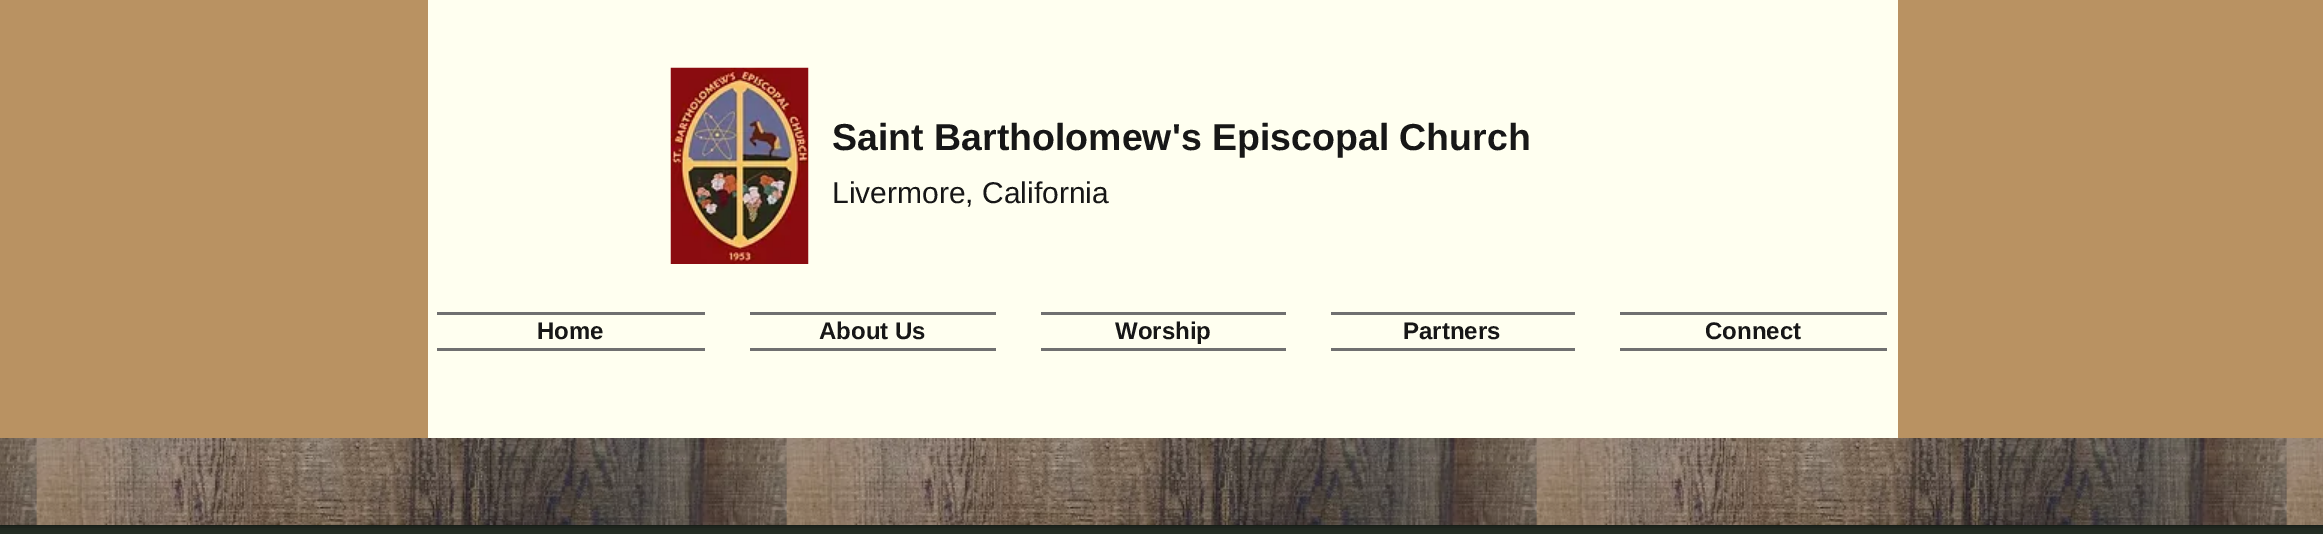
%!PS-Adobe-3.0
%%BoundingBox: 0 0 2323 534
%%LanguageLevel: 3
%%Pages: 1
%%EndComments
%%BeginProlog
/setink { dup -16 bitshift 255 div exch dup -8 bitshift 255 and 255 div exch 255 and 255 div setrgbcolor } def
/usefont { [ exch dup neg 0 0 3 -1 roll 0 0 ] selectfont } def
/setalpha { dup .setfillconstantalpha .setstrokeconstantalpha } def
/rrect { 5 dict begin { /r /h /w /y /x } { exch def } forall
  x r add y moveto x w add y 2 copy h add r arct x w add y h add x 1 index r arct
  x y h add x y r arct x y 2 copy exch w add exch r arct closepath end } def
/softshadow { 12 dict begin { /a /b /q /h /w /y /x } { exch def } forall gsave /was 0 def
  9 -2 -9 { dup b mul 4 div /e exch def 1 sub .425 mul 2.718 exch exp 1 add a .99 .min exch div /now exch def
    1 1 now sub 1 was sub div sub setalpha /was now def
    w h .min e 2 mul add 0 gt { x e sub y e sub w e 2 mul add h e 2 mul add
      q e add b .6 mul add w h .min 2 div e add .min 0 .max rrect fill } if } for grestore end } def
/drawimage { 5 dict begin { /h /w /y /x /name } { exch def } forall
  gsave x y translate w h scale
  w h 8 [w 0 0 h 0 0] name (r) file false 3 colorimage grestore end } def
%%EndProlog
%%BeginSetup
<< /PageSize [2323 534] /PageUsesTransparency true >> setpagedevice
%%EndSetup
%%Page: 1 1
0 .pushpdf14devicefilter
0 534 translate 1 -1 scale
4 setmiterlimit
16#252E25 setink
0 0 2323 534 rectfill
16#000000 setink
0 0 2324 525 0 4 0.7 softshadow
16#B99262 setink
0 0 2323 438 rectfill
16#FFFFF0 setink
428 0 1470 438 rectfill
(img1.raw) 670 67 139 197 drawimage
/LiberationSans-Bold 37.5 usefont
16#171717 setink
832 150 moveto (Saint Bartholomew's Episcopal Church) show
/LiberationSans-Regular 30 usefont
832 203 moveto (Livermore, California) show
16#707070 setink
437 312 268 3 rectfill
437 348 268 3 rectfill
/LiberationSans-Bold 24 usefont
16#171717 setink
537 339 moveto (Home) show
16#707070 setink
750 312 246 3 rectfill
750 348 246 3 rectfill
16#171717 setink
819 339 moveto (About Us) show
16#707070 setink
1041 312 245 3 rectfill
1041 348 245 3 rectfill
16#171717 setink
1115 339 moveto (Worship) show
16#707070 setink
1331 312 244 3 rectfill
1331 348 244 3 rectfill
16#171717 setink
1403 339 moveto (Partners) show
16#707070 setink
1620 312 267 3 rectfill
1620 348 267 3 rectfill
16#171717 setink
1705 339 moveto (Connect) show
(img2.raw) 0 438 2323 87 drawimage
.poppdf14devicefilter showpage
%%EOF
